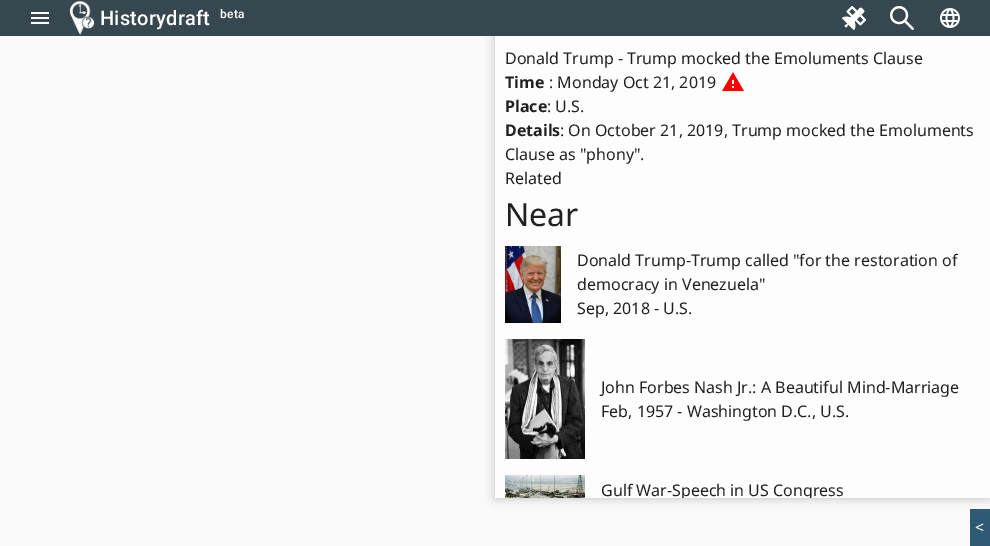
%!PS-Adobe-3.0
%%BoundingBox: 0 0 990 546
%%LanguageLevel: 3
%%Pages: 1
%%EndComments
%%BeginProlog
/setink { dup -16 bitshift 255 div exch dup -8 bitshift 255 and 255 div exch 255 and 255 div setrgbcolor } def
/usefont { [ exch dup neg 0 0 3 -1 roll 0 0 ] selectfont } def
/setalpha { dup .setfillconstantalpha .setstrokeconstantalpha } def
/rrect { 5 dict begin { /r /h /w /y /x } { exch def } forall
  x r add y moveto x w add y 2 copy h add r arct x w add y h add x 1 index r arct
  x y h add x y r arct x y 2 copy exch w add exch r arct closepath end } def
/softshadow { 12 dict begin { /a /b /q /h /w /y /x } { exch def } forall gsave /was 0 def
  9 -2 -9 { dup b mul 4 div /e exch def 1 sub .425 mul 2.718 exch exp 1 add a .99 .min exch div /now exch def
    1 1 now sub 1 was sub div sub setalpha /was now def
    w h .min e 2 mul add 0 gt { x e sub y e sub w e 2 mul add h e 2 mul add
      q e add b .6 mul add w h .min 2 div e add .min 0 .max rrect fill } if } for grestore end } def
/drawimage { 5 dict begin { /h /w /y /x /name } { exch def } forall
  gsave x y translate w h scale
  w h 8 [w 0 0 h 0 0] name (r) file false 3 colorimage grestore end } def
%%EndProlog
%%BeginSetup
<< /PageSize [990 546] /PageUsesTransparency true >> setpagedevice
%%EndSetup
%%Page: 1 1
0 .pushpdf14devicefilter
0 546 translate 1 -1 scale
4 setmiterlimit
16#FAFAFA setink
0 0 990 546 rectfill
16#000000 setink
495 36 495 462 0 5 0.25 softshadow
16#36474F setink
0 0 990 36 rectfill
(img1.raw) 31 12 18 12 drawimage
(img2.raw) 69 0 26 35 drawimage
/Roboto-Medium 20 usefont
16#FFFFFF setink
100 25 moveto 0.25 0 (Historydraft) ashow
/Roboto-Medium 12 usefont
220 18 moveto 0.25 0 (beta) ashow
(img3.raw) 842 6 24 24 drawimage
(img4.raw) 890 6 24 24 drawimage
(img5.raw) 940 8 20 20 drawimage
16#FDFDFD setink
495 36 495 462 rectfill
/NotoSans-Regular 16 usefont
16#212121 setink
505 64 moveto (Donald Trump - Trump mocked the Emoluments Clause) show
/NotoSans-Bold 16 usefont
505 88 moveto (Time) show
/NotoSans-Regular 16 usefont
549 88 moveto (: Monday Oct 21, 2019) show
(img6.raw) 722 72 22 19 drawimage
/NotoSans-Bold 16 usefont
505 112 moveto (Place) show
/NotoSans-Regular 16 usefont
547 112 moveto (: U.S.) show
/NotoSans-Bold 16 usefont
505 136 moveto (Details) show
/NotoSans-Regular 16 usefont
[
    [(: On October 21, 2019, Trump mocked the Emoluments) 560 136]
    [(Clause as "phony".) 505 160]
    [(Related) 505 184]
] { aload pop moveto show } forall
/NotoSans-Regular 32 usefont
505 226 moveto (Near) show
(img7.raw) 505 246 56 77 drawimage
/NotoSans-Regular 16 usefont
[
    [(Donald Trump-Trump called "for the restoration of) 577 266]
    [(democracy in Venezuela") 577 290]
    [(Sep, 2018 - U.S.) 577 314]
] { aload pop moveto show } forall
(img8.raw) 505 339 80 120 drawimage
601 393 moveto (John Forbes Nash Jr.: A Beautiful Mind-Marriage) show
601 417 moveto (Feb, 1957 - Washington D.C., U.S.) show
(img9.raw) 505 475 80 23 drawimage
gsave
495 36 495 462 rectclip
601 496 moveto (Gulf War-Speech in US Congress) show
grestore
16#2E5A73 setink
970 509 20 37 rectfill
16#FFFFFF setink
975 533 moveto (<) show
.poppdf14devicefilter showpage
%%EOF
